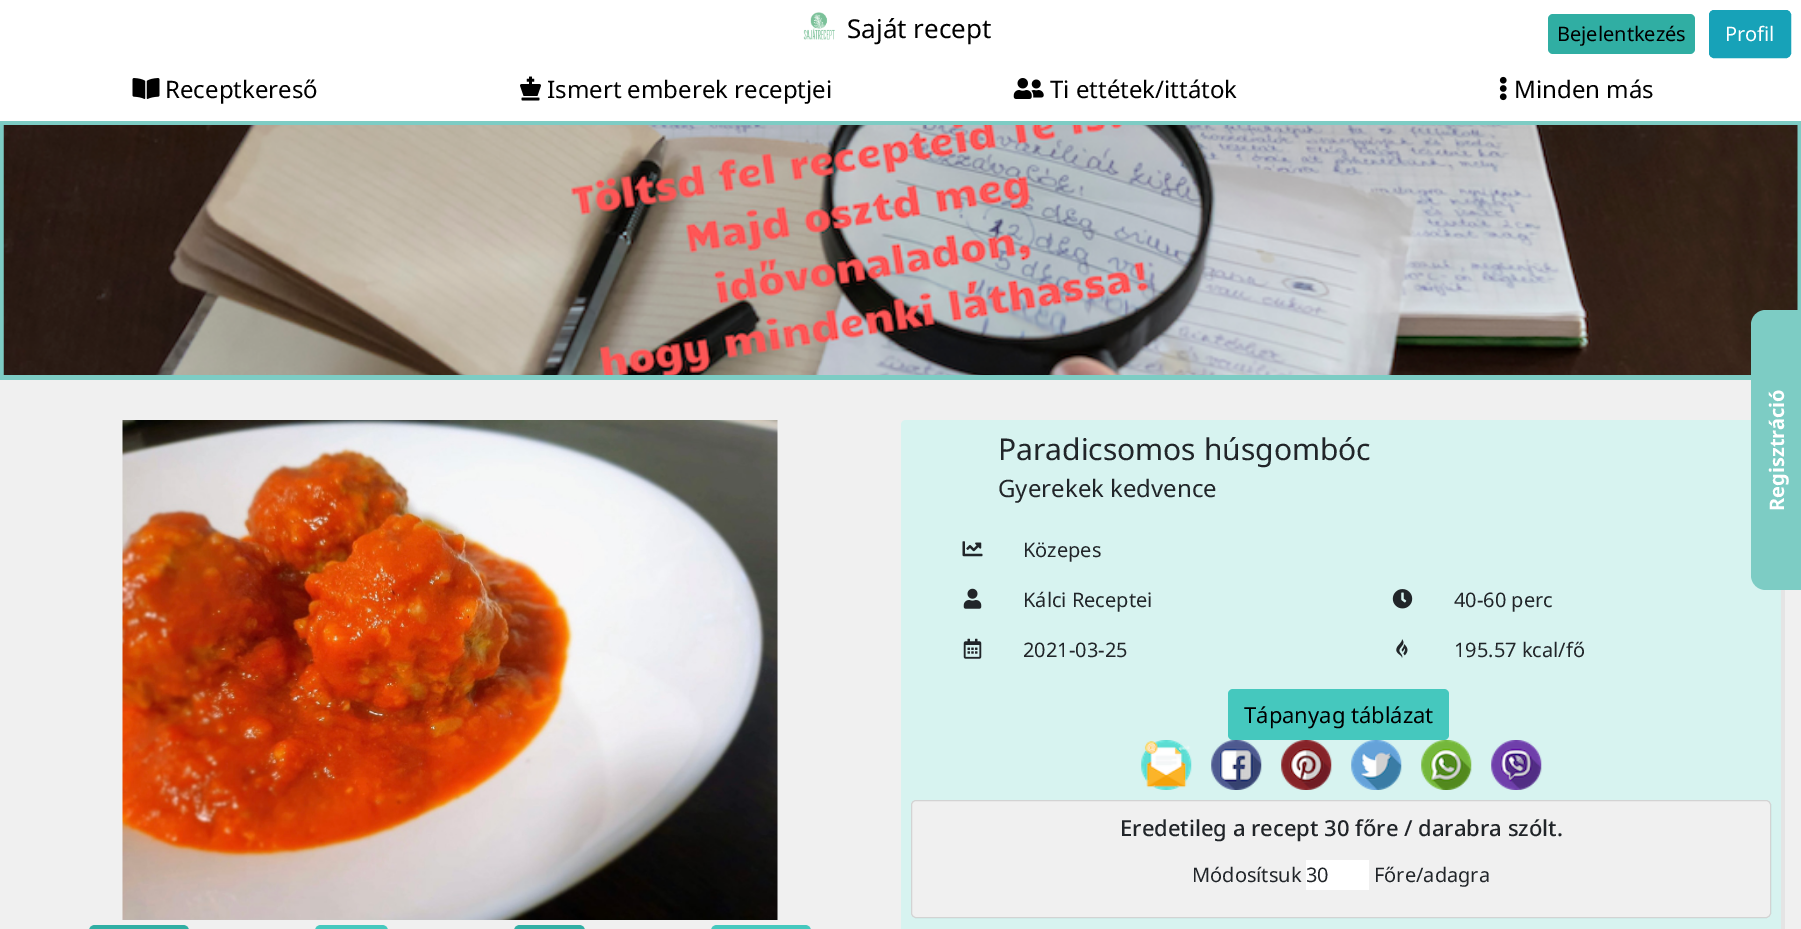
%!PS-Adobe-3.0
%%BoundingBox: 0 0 1801 929
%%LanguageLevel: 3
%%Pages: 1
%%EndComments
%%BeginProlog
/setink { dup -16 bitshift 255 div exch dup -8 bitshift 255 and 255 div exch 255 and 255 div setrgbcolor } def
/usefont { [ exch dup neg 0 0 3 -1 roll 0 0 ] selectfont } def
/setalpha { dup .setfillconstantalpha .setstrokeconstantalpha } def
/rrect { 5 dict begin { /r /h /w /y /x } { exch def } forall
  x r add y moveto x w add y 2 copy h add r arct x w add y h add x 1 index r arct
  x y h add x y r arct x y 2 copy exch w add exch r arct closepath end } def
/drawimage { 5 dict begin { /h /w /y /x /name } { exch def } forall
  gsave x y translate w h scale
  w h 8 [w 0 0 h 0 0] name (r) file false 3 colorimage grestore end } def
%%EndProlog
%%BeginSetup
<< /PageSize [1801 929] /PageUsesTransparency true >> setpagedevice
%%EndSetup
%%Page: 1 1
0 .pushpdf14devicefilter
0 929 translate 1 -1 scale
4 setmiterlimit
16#FFFFFF setink
0 0 1801 929 rectfill
(img1.raw) 803 12 32 28 drawimage
/NotoSans-Regular 26 usefont
16#000000 setink
847 38 moveto (Saját recept) show
16#30AEA3 setink
1548 14 147 40 5 rrect fill
/NotoSans-Regular 20 usefont
16#000000 setink
1557 41 moveto (Bejelentkezés) show
16#17A2B8 setink
1709.5 10.5 81 47 4.5 rrect gsave fill grestore
stroke
16#FFFFFF setink
1725 41 moveto (Profil) show
(img2.raw) 132 78 28 21 drawimage
/NotoSans-Regular 24 usefont
16#000000 setink
165 98 moveto (Receptkereső) show
(img3.raw) 520 76 21 25 drawimage
547 98 moveto (Ismert emberek receptjei) show
(img4.raw) 1013 78 31 21 drawimage
1050 98 moveto (Ti ettétek/ittátok) show
(img5.raw) 1499 76 8 25 drawimage
1514 98 moveto (Minden más) show
16#7DCCC4 setink
0 121 1801 259 rectfill
(img6.raw) 3 125 1795 250 drawimage
16#F0F0F0 setink
0 380 1801 549 rectfill
(img7.raw) 122 420 656 500 drawimage
16#30AEA3 setink
95 925 moveto 183 925 lineto 186.5 925 189 927.5 189 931 curveto 189 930 lineto 89 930 lineto 89 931 lineto 89 927.5 91.5 925 95 925 curveto closepath fill
16#45C8BE setink
321 925 moveto 382 925 lineto 385.5 925 388 927.5 388 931 curveto 388 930 lineto 315 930 lineto 315 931 lineto 315 927.5 317.5 925 321 925 curveto closepath fill
16#30AEA3 setink
520 925 moveto 579 925 lineto 582.5 925 585 927.5 585 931 curveto 585 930 lineto 514 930 lineto 514 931 lineto 514 927.5 516.5 925 520 925 curveto closepath fill
16#45C8BE setink
717 925 moveto 805 925 lineto 808.5 925 811 927.5 811 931 curveto 811 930 lineto 711 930 lineto 711 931 lineto 711 927.5 713.5 925 717 925 curveto closepath fill
16#E4E4E4 setink
905 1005 moveto 905 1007 908 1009 910 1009 curveto 1780 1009 lineto 1783 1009 1785 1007 1785 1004 curveto 1785 429 lineto 1785 427 1783 425 1781 424 curveto 1781 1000 lineto 1781 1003 1779 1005 1776 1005 curveto closepath fill
16#D7F3F0 setink
906 420 moveto 1776 420 lineto 1779 420 1781 422 1781 425 curveto 1781 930 lineto 901 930 lineto 901 425 lineto 901 422 903 420 906 420 curveto closepath fill
/NotoSans-Regular 30 usefont
16#212529 setink
998 460 moveto (Paradicsomos húsgombóc) show
/NotoSans-Regular 24 usefont
998 497 moveto (Gyerekek kedvence) show
(img8.raw) 962 541 21 16 drawimage
/NotoSans-Regular 20 usefont
1023 557 moveto (Közepes) show
(img9.raw) 963 588 19 21 drawimage
1023 607 moveto (Kálci Receptei) show
(img10.raw) 1392 589 21 20 drawimage
1454 607 moveto (40-60 perc) show
(img11.raw) 963 638 19 21 drawimage
1023 657 moveto (2021-03-25) show
(img12.raw) 1396 639 12 20 drawimage
1454 657 moveto (195.57 kcal/fő) show
16#45C8BE setink
1228 689 221 51 5 rrect fill
/NotoSans-Regular 22 usefont
16#000000 setink
1244 723 moveto (Tápanyag táblázat) show
(img13.raw) 1141 740 51 50 drawimage
(img14.raw) 1211 740 51 50 drawimage
(img15.raw) 1281 740 51 50 drawimage
(img16.raw) 1351 740 51 50 drawimage
(img17.raw) 1421 740 51 50 drawimage
(img18.raw) 1491 740 51 50 drawimage
16#F0F0F0 setink
911 800 860 118 5 rrect fill
0.12 setalpha
16#000000 setink
911.5 800.5 859 117 4.5 rrect stroke
/NotoSans-Medium 22 usefont
1 setalpha
16#212529 setink
1120 836 moveto (Eredetileg a recept 30 főre / darabra szólt.) show
/NotoSans-Regular 20 usefont
1192 882 moveto (Módosítsuk) show
16#FFFFFF setink
1306 860 63 30 rectfill
16#212529 setink
1306 882 moveto (30) show
1374 882 moveto (Főre/adagra) show
16#7DCCC4 setink
1766 310 moveto 1801 310 lineto 1801 590 lineto 1766 590 lineto 1757.5 590 1751 583.5 1751 575 curveto 1751 325 lineto 1751 316.5 1757.5 310 1766 310 curveto closepath fill
/NotoSans-Bold 20 usefont
16#FFFFFF setink
gsave 1784 511 translate -90 rotate 0 0 moveto (Regisztráció) show grestore
.poppdf14devicefilter showpage
%%EOF
